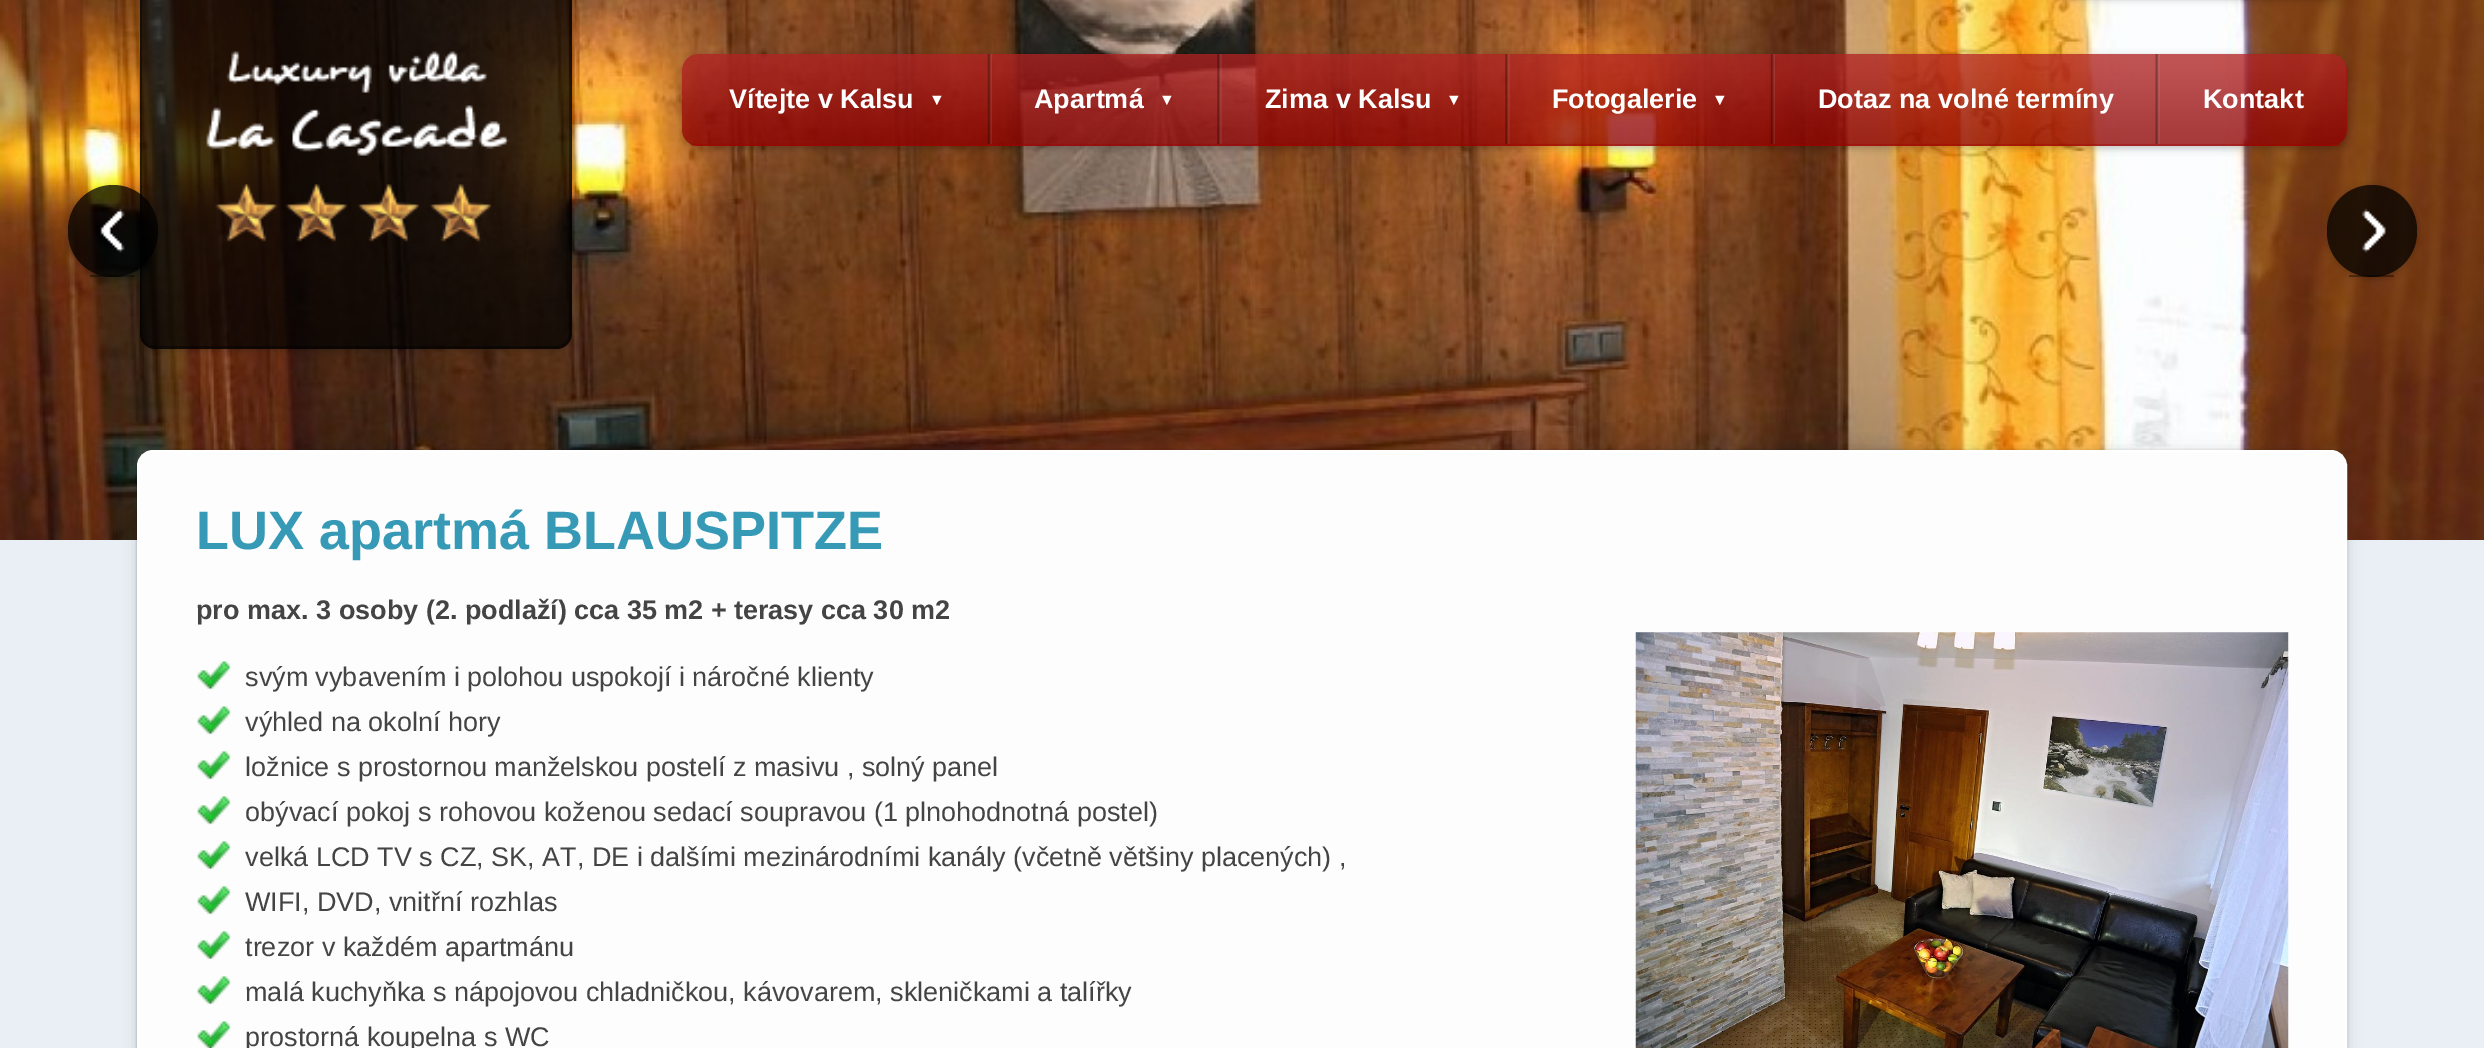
%!PS-Adobe-3.0
%%BoundingBox: 0 0 2484 1048
%%LanguageLevel: 3
%%Pages: 1
%%EndComments
%%BeginProlog
/setink { dup -16 bitshift 255 div exch dup -8 bitshift 255 and 255 div exch 255 and 255 div setrgbcolor } def
/usefont { [ exch dup neg 0 0 3 -1 roll 0 0 ] selectfont } def
/setalpha { dup .setfillconstantalpha .setstrokeconstantalpha } def
/rrect { 5 dict begin { /r /h /w /y /x } { exch def } forall
  x r add y moveto x w add y 2 copy h add r arct x w add y h add x 1 index r arct
  x y h add x y r arct x y 2 copy exch w add exch r arct closepath end } def
/softshadow { 12 dict begin { /a /b /q /h /w /y /x } { exch def } forall gsave /was 0 def
  9 -2 -9 { dup b mul 4 div /e exch def 1 sub .425 mul 2.718 exch exp 1 add a .99 .min exch div /now exch def
    1 1 now sub 1 was sub div sub setalpha /was now def
    w h .min e 2 mul add 0 gt { x e sub y e sub w e 2 mul add h e 2 mul add
      q e add b .6 mul add w h .min 2 div e add .min 0 .max rrect fill } if } for grestore end } def
/drawimage { 5 dict begin { /h /w /y /x /name } { exch def } forall
  gsave x y translate w h scale
  w h 8 [w 0 0 h 0 0] name (r) file false 3 colorimage grestore end } def
%%EndProlog
%%BeginSetup
<< /PageSize [2484 1048] /PageUsesTransparency true >> setpagedevice
%%EndSetup
%%Page: 1 1
0 .pushpdf14devicefilter
0 1048 translate 1 -1 scale
4 setmiterlimit
16#E9EFF5 setink
0 0 2484 1048 rectfill
(img1.raw) 0 0 2484 540 drawimage
gsave
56 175 moveto 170 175 lineto 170 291 lineto 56 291 lineto closepath 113 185 moveto 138 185 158 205 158 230 curveto 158 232 lineto 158 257 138 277 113 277 curveto 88 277 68 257 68 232 curveto 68 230 lineto 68 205 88 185 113 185 curveto closepath eoclip newpath
16#000000 setink
68 187 90 92 45 3.5 0.18 softshadow
grestore
0.75 setalpha
16#000000 setink
68 185 90 92 45 rrect fill
1 setalpha
(img2.raw) 100 208 25 45 drawimage
0.37 setalpha
90 275 45 2 rectfill
gsave
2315 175 moveto 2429 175 lineto 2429 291 lineto 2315 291 lineto closepath 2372 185 moveto 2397 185 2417 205 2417 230 curveto 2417 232 lineto 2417 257 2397 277 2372 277 curveto 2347 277 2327 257 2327 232 curveto 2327 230 lineto 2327 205 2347 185 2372 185 curveto closepath eoclip newpath
1 setalpha
2327 187 90 92 45 3.5 0.18 softshadow
grestore
0.75 setalpha
2327 185 90 92 45 rrect fill
1 setalpha
(img3.raw) 2362 208 24 45 drawimage
0.37 setalpha
2349 275 45 2 rectfill
gsave
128 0 moveto 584 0 lineto 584 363 lineto 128 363 lineto closepath 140 -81 moveto 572 -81 lineto 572 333 lineto 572 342 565 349 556 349 curveto 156 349 lineto 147 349 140 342 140 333 curveto closepath eoclip newpath
1 setalpha
140 -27 432 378 16 3.5 0.18 softshadow
grestore
0.75 setalpha
140 -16 moveto 572 -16 lineto 572 333 lineto 572 342 565 349 556 349 curveto 156 349 lineto 147 349 140 342 140 333 curveto closepath fill
0.37 setalpha
140 -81 moveto 572 -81 lineto 572 333 lineto 572 342 564 349 556 349 curveto 155 349 lineto 147 349 140 342 140 333 curveto closepath 142 -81 moveto 569 -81 lineto 569 333 lineto 569 340 563 346 556 346 curveto 155 346 lineto 148 346 142 340 142 333 curveto closepath eofill
1 setalpha
(img4.raw) 206 51 303 191 drawimage
2059 -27 288 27 16 3.5 0.18 softshadow
gsave
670 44 moveto 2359 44 lineto 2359 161 lineto 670 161 lineto closepath 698 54 moveto 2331 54 lineto 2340 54 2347 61 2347 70 curveto 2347 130 lineto 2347 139 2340 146 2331 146 curveto 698 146 lineto 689 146 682 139 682 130 curveto 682 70 lineto 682 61 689 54 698 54 curveto closepath eoclip newpath
682 56 1665 93 16 3.5 0.2 softshadow
grestore
0.75 setalpha
16#A30000 setink
682 54 1665 92 16 rrect fill
1 setalpha
(img5.raw) 682 54 1665 92 drawimage
0.37 setalpha
691 144 1649 2 rectfill
/LiberationSans-Bold 27 usefont
1 setalpha
16#FFFFFF setink
729 108 moveto (Vítejte v Kalsu) show
/LiberationSans-Bold 16 usefont
929 105 moveto (▼) show
(img6.raw) 987 54 5 90 drawimage
/LiberationSans-Bold 27 usefont
1034 108 moveto (Apartmá) show
/LiberationSans-Bold 16 usefont
1159 105 moveto (▼) show
(img7.raw) 1217 54 5 90 drawimage
/LiberationSans-Bold 27 usefont
1265 108 moveto (Zima v Kalsu) show
/LiberationSans-Bold 16 usefont
1446 105 moveto (▼) show
(img8.raw) 1505 54 5 90 drawimage
/LiberationSans-Bold 27 usefont
1552 108 moveto (Fotogalerie) show
/LiberationSans-Bold 16 usefont
1712 105 moveto (▼) show
(img9.raw) 1770 54 5 90 drawimage
/LiberationSans-Bold 27 usefont
1818 108 moveto (Dotaz na volné termíny) show
(img10.raw) 2155 54 5 90 drawimage
2203 108 moveto (Kontakt) show
16#000000 setink
137 450 2210 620 16 2 0.1 softshadow
137 450 2210 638 16 8 0.1 softshadow
137 452 2210 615 16 1 0.2 softshadow
16#FDFDFD setink
138 451 2208 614 15 rrect gsave fill grestore
16#FFFFFF setink
2 setlinewidth
stroke
/LiberationSans-Bold 54 usefont
16#3699B5 setink
196 549 moveto (LUX apartmá BLAUSPITZE) show
/LiberationSans-Bold 27 usefont
16#444444 setink
196 619 moveto (pro max. 3 osoby \(2. podlaží\) cca 35 m2 + terasy cca 30 m2) show
(img11.raw) 197 661 34 29 drawimage
/LiberationSans-Regular 27 usefont
245 686 moveto (svým vybavením i polohou uspokojí i náročné klienty) show
(img11.raw) 197 706 34 29 drawimage
245 731 moveto (výhled na okolní hory) show
(img12.raw) 197 751 34 29 drawimage
245 776 moveto (ložnice s prostornou manželskou postelí z masivu , solný panel) show
(img11.raw) 197 796 34 29 drawimage
245 821 moveto (obývací pokoj s rohovou koženou sedací soupravou \(1 plnohodnotná postel\)) show
(img11.raw) 197 841 34 29 drawimage
245 866 moveto (velká LCD TV s CZ, SK, AT, DE i dalšími mezinárodními kanály \(včetně většiny placených\) ,) show
(img11.raw) 197 886 34 29 drawimage
245 911 moveto (WIFI, DVD, vnitřní rozhlas) show
(img11.raw) 197 931 34 29 drawimage
245 956 moveto (trezor v každém apartmánu) show
(img11.raw) 197 976 34 29 drawimage
245 1001 moveto (malá kuchyňka s nápojovou chladničkou, kávovarem, skleničkami a talířky) show
(img13.raw) 197 1021 34 27 drawimage
245 1046 moveto (prostorná koupelna s WC) show
(img14.raw) 1635 632 654 416 drawimage
.poppdf14devicefilter showpage
%%EOF
